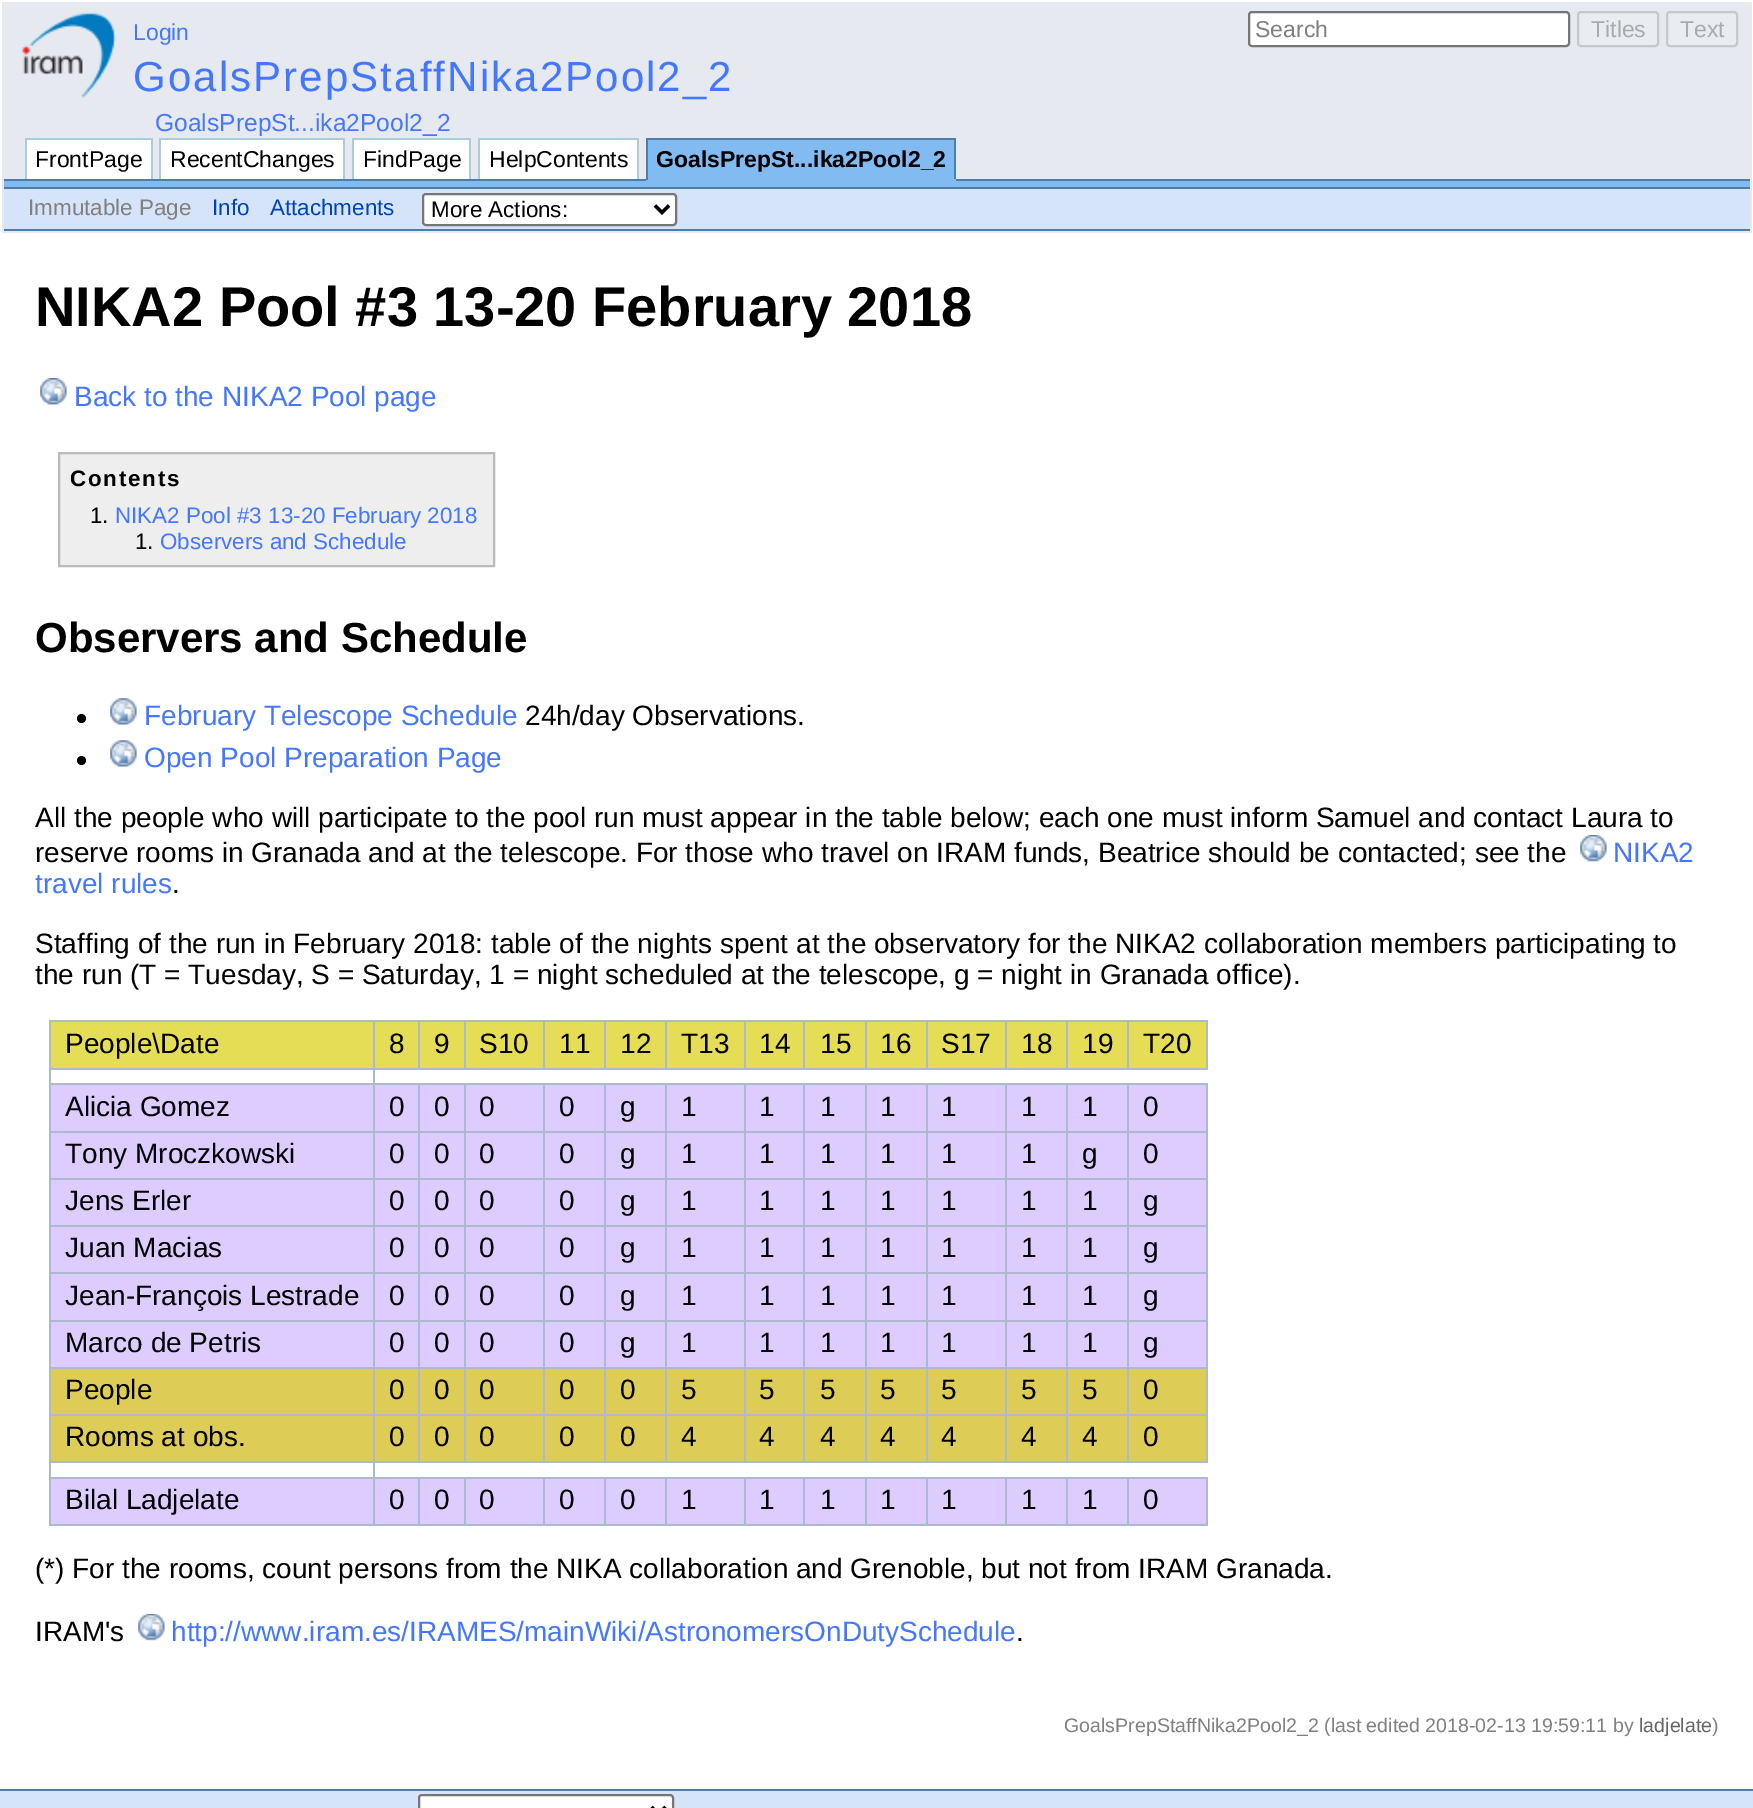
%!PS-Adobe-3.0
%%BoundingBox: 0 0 1753 1808
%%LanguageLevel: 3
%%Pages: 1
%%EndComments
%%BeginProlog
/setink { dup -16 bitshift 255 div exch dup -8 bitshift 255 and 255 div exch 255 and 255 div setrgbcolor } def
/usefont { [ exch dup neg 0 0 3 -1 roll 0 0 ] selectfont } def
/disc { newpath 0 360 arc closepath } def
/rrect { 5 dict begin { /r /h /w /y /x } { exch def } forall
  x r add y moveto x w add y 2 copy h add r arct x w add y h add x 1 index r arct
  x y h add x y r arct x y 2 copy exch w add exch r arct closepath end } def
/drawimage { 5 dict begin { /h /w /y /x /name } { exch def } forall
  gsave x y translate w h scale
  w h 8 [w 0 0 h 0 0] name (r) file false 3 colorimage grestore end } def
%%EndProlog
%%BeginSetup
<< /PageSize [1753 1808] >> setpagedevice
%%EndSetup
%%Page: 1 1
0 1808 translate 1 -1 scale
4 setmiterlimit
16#FFFFFF setink
0 0 1753 1808 rectfill
16#E6EAF0 setink
2 2 1750 231 rectfill
(img1.raw) 21 12 95 87 drawimage
/LiberationSans-Regular 23 usefont
16#4477FF setink
133 40 moveto (Login) show
16#FFFFFF setink
1249 12 320 34 3 rrect gsave fill grestore
16#767676 setink
2 setlinewidth
stroke
16#808080 setink
1255 37 moveto (Search) show
16#E9ECF0 setink
1578 12 80 34 3 rrect gsave fill grestore
16#C6C9CB setink
stroke
16#A8AAAD setink
1591 37 moveto (Titles) show
16#E9ECF0 setink
1667 12 70 34 3 rrect gsave fill grestore
16#C6C9CB setink
stroke
16#A8AAAD setink
1680 37 moveto (Text) show
/LiberationSans-Regular 42 usefont
16#4477FF setink
133 91 moveto 2.1 0 (GoalsPrepStaffNika2Pool2_2) ashow
/LiberationSans-Regular 24.6 usefont
155 131 moveto (GoalsPrepSt...ika2Pool2_2) show
[
    [27 140 124 39 16#FFFFFF]
    [25 138 127 2 16#AACCDD]
    [151 138 2 41 16#AACCDD]
    [25 138 2 41 16#AACCDD]
] { aload pop setink rectfill } forall
/LiberationSans-Regular 23 usefont
16#000000 setink
35 167 moveto (FrontPage) show
[
    [161 140 182 39 16#FFFFFF]
    [159 138 186 2 16#AACCDD]
    [343 138 2 41 16#AACCDD]
    [159 138 2 41 16#AACCDD]
] { aload pop setink rectfill } forall
16#000000 setink
170 167 moveto (RecentChanges) show
[
    [354 140 115 39 16#FFFFFF]
    [352 138 119 2 16#AACCDD]
    [469 138 2 41 16#AACCDD]
    [352 138 2 41 16#AACCDD]
] { aload pop setink rectfill } forall
16#000000 setink
363 167 moveto (FindPage) show
[
    [480 140 157 39 16#FFFFFF]
    [478 138 161 2 16#AACCDD]
    [637 138 2 41 16#AACCDD]
    [478 138 2 41 16#AACCDD]
] { aload pop setink rectfill } forall
16#000000 setink
489 167 moveto (HelpContents) show
[
    [648 140 306 39 16#81BBF2]
    [646 138 310 2 16#4D7DA9]
    [4 179 1746 2 16#4D7DA9]
    [954 138 2 42 16#4D7DA9]
    [646 179 310 2 16#81BBF2]
    [646 138 2 42 16#4D7DA9]
] { aload pop setink rectfill } forall
/LiberationSans-Bold 23 usefont
16#000000 setink
656 167 moveto (GoalsPrepSt...ika2Pool2_2) show
[
    [4 181 1746 6 16#81BBF2]
    [4 189 1746 40 16#D6E4F9]
    [4 187 1746 2 16#4D7DA9]
    [4 229 1746 2 16#4D7DA9]
] { aload pop setink rectfill } forall
/LiberationSans-Regular 22.4 usefont
16#808080 setink
28 215 moveto (Immutable Page) show
16#0044B3 setink
212 215 moveto (Info) show
270 215 moveto (Attachments) show
16#FFFFFF setink
423 194 253 31 3 rrect gsave fill grestore
16#767676 setink
stroke
16#000000 setink
3.5 setlinewidth
655 205.5 moveto 662 212.5 lineto 669 205.5 lineto stroke
431 217 moveto (More Actions:) show
/LiberationSans-Bold 56 usefont
35 326 moveto (NIKA2 Pool #3 13-20 February 2018) show
(img2.raw) 40 378 27 27 drawimage
/LiberationSans-Regular 28 usefont
16#4477FF setink
74 406 moveto (Back to the NIKA2 Pool page) show
16#EEEEEE setink
59 453 moveto 494 453 lineto 494 566 lineto 59 566 lineto closepath gsave fill grestore
16#BBBBBB setink
2 setlinewidth
stroke
/LiberationSans-Bold 22.4 usefont
16#000000 setink
70 486 moveto 1.75 0 (Contents) ashow
/LiberationSans-Regular 22.4 usefont
90 523 moveto (1.) show
16#4477FF setink
115 523 moveto (NIKA2 Pool #3 13-20 February 2018) show
16#000000 setink
135 549 moveto (1.) show
16#4477FF setink
160 549 moveto (Observers and Schedule) show
/LiberationSans-Bold 42 usefont
16#000000 setink
35 652 moveto (Observers and Schedule) show
81.5 718.5 4.5 disc fill
(img3.raw) 110 698 27 27 drawimage
/LiberationSans-Regular 28 usefont
16#4477FF setink
144 725 moveto (February Telescope Schedule) show
16#000000 setink
525 725 moveto (24h/day Observations.) show
81.5 760.5 4.5 disc fill
(img3.raw) 110 740 27 27 drawimage
16#4477FF setink
144 767 moveto (Open Pool Preparation Page) show
16#000000 setink
35 827 moveto (All the people who will participate to the pool run must appear in the table below; each one must inform Samuel and contact Laura to) show
35 862 moveto (reserve rooms in Granada and at the telescope. For those who travel on IRAM funds, Beatrice should be contacted; see the) show
(img4.raw) 1580 835 27 27 drawimage
16#4477FF setink
1613 862 moveto (NIKA2) show
35 893 moveto (travel rules) show
16#000000 setink
[
    [(.) 172 893]
    [(Staffing of the run in February 2018: table of the nights spent at the observatory for the NIKA2 collaboration members participating to) 35 953]
    [(the run \(T = Tuesday, S = Saturday, 1 = night scheduled at the telescope, g = night in Granada office\).) 35 984]
] { aload pop moveto show } forall
[
    [51 1022 1155 46 16#E5DD55]
    [1127 1020 81 2 16#ADB9CC]
    [1206 1020 2 49 16#ADB9CC]
    [1127 1068 81 2 16#ADB9CC]
    [1127 1020 2 49 16#ADB9CC]
    [1066 1020 63 2 16#ADB9CC]
    [1066 1068 63 2 16#ADB9CC]
    [1066 1020 2 49 16#ADB9CC]
    [1005 1020 63 2 16#ADB9CC]
    [1005 1068 63 2 16#ADB9CC]
    [1005 1020 2 49 16#ADB9CC]
    [926 1020 80 2 16#ADB9CC]
    [926 1068 80 2 16#ADB9CC]
    [926 1020 2 49 16#ADB9CC]
    [865 1020 63 2 16#ADB9CC]
    [865 1068 63 2 16#ADB9CC]
    [865 1020 2 49 16#ADB9CC]
    [803 1020 63 2 16#ADB9CC]
    [803 1068 63 2 16#ADB9CC]
    [803 1020 2 49 16#ADB9CC]
    [744 1020 61 2 16#ADB9CC]
    [744 1068 61 2 16#ADB9CC]
    [744 1020 2 49 16#ADB9CC]
    [665 1020 81 2 16#ADB9CC]
    [665 1068 81 2 16#ADB9CC]
    [665 1020 2 49 16#ADB9CC]
    [604 1020 63 2 16#ADB9CC]
    [604 1068 63 2 16#ADB9CC]
    [604 1020 2 49 16#ADB9CC]
    [543 1020 63 2 16#ADB9CC]
    [543 1068 63 2 16#ADB9CC]
    [543 1020 2 49 16#ADB9CC]
    [464 1020 80 2 16#ADB9CC]
    [464 1068 80 2 16#ADB9CC]
    [464 1020 2 49 16#ADB9CC]
    [418 1020 48 2 16#ADB9CC]
    [418 1068 48 2 16#ADB9CC]
    [418 1020 2 49 16#ADB9CC]
    [373 1020 47 2 16#ADB9CC]
    [49 1068 326 2 16#ADB9CC]
    [1127 1083 81 2 16#ADB9CC]
    [51 1085 1155 46 16#DDCCFF]
    [1127 1131 81 2 16#ADB9CC]
    [51 1133 1155 45 16#DDCCFF]
    [1127 1178 81 2 16#ADB9CC]
    [51 1180 1155 45 16#DDCCFF]
    [1127 1225 81 2 16#ADB9CC]
    [51 1227 1155 45 16#DDCCFF]
    [1127 1272 81 2 16#ADB9CC]
    [51 1274 1155 46 16#DDCCFF]
    [1127 1320 81 2 16#ADB9CC]
    [51 1322 1155 45 16#DDCCFF]
    [1127 1367 81 2 16#ADB9CC]
    [51 1369 1155 45 16#DDCC55]
    [1127 1414 81 2 16#ADB9CC]
    [51 1416 1155 45 16#DDCC55]
    [1206 1414 2 49 16#ADB9CC]
    [1127 1461 81 2 16#ADB9CC]
    [1127 1414 2 49 16#ADB9CC]
    [1066 1414 63 2 16#ADB9CC]
    [1127 1367 2 49 16#ADB9CC]
    [1066 1367 63 2 16#ADB9CC]
    [1127 1320 2 49 16#ADB9CC]
    [1066 1320 63 2 16#ADB9CC]
    [1127 1272 2 49 16#ADB9CC]
    [1066 1272 63 2 16#ADB9CC]
    [1127 1225 2 49 16#ADB9CC]
    [1066 1225 63 2 16#ADB9CC]
    [1127 1178 2 49 16#ADB9CC]
    [1066 1178 63 2 16#ADB9CC]
    [1127 1131 2 49 16#ADB9CC]
    [1066 1131 63 2 16#ADB9CC]
    [1127 1083 2 49 16#ADB9CC]
    [1066 1083 63 2 16#ADB9CC]
    [1066 1461 63 2 16#ADB9CC]
    [1066 1414 2 49 16#ADB9CC]
    [1005 1414 63 2 16#ADB9CC]
    [1066 1367 2 49 16#ADB9CC]
    [1005 1367 63 2 16#ADB9CC]
    [1066 1320 2 49 16#ADB9CC]
    [1005 1320 63 2 16#ADB9CC]
    [1066 1272 2 49 16#ADB9CC]
    [1005 1272 63 2 16#ADB9CC]
    [1066 1225 2 49 16#ADB9CC]
    [1005 1225 63 2 16#ADB9CC]
    [1066 1178 2 49 16#ADB9CC]
    [1005 1178 63 2 16#ADB9CC]
    [1066 1131 2 49 16#ADB9CC]
    [1005 1131 63 2 16#ADB9CC]
    [1066 1083 2 49 16#ADB9CC]
    [1005 1083 63 2 16#ADB9CC]
    [1005 1461 63 2 16#ADB9CC]
    [1005 1414 2 49 16#ADB9CC]
    [926 1414 80 2 16#ADB9CC]
    [1005 1367 2 49 16#ADB9CC]
    [926 1367 80 2 16#ADB9CC]
    [1005 1320 2 49 16#ADB9CC]
    [926 1320 80 2 16#ADB9CC]
    [1005 1272 2 49 16#ADB9CC]
    [926 1272 80 2 16#ADB9CC]
    [1005 1225 2 49 16#ADB9CC]
    [926 1225 80 2 16#ADB9CC]
    [1005 1178 2 49 16#ADB9CC]
    [926 1178 80 2 16#ADB9CC]
    [1005 1131 2 49 16#ADB9CC]
    [926 1131 80 2 16#ADB9CC]
    [1005 1083 2 49 16#ADB9CC]
    [926 1083 80 2 16#ADB9CC]
    [926 1461 80 2 16#ADB9CC]
    [926 1414 2 49 16#ADB9CC]
    [865 1414 63 2 16#ADB9CC]
    [926 1367 2 49 16#ADB9CC]
    [865 1367 63 2 16#ADB9CC]
    [926 1320 2 49 16#ADB9CC]
    [865 1320 63 2 16#ADB9CC]
    [926 1272 2 49 16#ADB9CC]
    [865 1272 63 2 16#ADB9CC]
    [926 1225 2 49 16#ADB9CC]
    [865 1225 63 2 16#ADB9CC]
    [926 1178 2 49 16#ADB9CC]
    [865 1178 63 2 16#ADB9CC]
    [926 1131 2 49 16#ADB9CC]
    [865 1131 63 2 16#ADB9CC]
    [926 1083 2 49 16#ADB9CC]
    [865 1083 63 2 16#ADB9CC]
    [865 1461 63 2 16#ADB9CC]
    [865 1414 2 49 16#ADB9CC]
    [803 1414 63 2 16#ADB9CC]
    [865 1367 2 49 16#ADB9CC]
    [803 1367 63 2 16#ADB9CC]
    [865 1320 2 49 16#ADB9CC]
    [803 1320 63 2 16#ADB9CC]
    [865 1272 2 49 16#ADB9CC]
    [803 1272 63 2 16#ADB9CC]
    [865 1225 2 49 16#ADB9CC]
    [803 1225 63 2 16#ADB9CC]
    [865 1178 2 49 16#ADB9CC]
    [803 1178 63 2 16#ADB9CC]
    [865 1131 2 49 16#ADB9CC]
    [803 1131 63 2 16#ADB9CC]
    [865 1083 2 49 16#ADB9CC]
    [803 1083 63 2 16#ADB9CC]
    [803 1461 63 2 16#ADB9CC]
    [803 1414 2 49 16#ADB9CC]
    [744 1414 61 2 16#ADB9CC]
    [803 1367 2 49 16#ADB9CC]
    [744 1367 61 2 16#ADB9CC]
    [803 1320 2 49 16#ADB9CC]
    [744 1320 61 2 16#ADB9CC]
    [803 1272 2 49 16#ADB9CC]
    [744 1272 61 2 16#ADB9CC]
    [803 1225 2 49 16#ADB9CC]
    [744 1225 61 2 16#ADB9CC]
    [803 1178 2 49 16#ADB9CC]
    [744 1178 61 2 16#ADB9CC]
    [803 1131 2 49 16#ADB9CC]
    [744 1131 61 2 16#ADB9CC]
    [803 1083 2 49 16#ADB9CC]
    [744 1083 61 2 16#ADB9CC]
    [744 1461 61 2 16#ADB9CC]
    [744 1414 2 49 16#ADB9CC]
    [665 1414 81 2 16#ADB9CC]
    [744 1367 2 49 16#ADB9CC]
    [665 1367 81 2 16#ADB9CC]
    [744 1320 2 49 16#ADB9CC]
    [665 1320 81 2 16#ADB9CC]
    [744 1272 2 49 16#ADB9CC]
    [665 1272 81 2 16#ADB9CC]
    [744 1225 2 49 16#ADB9CC]
    [665 1225 81 2 16#ADB9CC]
    [744 1178 2 49 16#ADB9CC]
    [665 1178 81 2 16#ADB9CC]
    [744 1131 2 49 16#ADB9CC]
    [665 1131 81 2 16#ADB9CC]
    [744 1083 2 49 16#ADB9CC]
    [665 1083 81 2 16#ADB9CC]
    [665 1461 81 2 16#ADB9CC]
    [665 1414 2 49 16#ADB9CC]
    [604 1414 63 2 16#ADB9CC]
    [665 1367 2 49 16#ADB9CC]
    [604 1367 63 2 16#ADB9CC]
    [665 1320 2 49 16#ADB9CC]
    [604 1320 63 2 16#ADB9CC]
    [665 1272 2 49 16#ADB9CC]
    [604 1272 63 2 16#ADB9CC]
    [665 1225 2 49 16#ADB9CC]
    [604 1225 63 2 16#ADB9CC]
    [665 1178 2 49 16#ADB9CC]
    [604 1178 63 2 16#ADB9CC]
    [665 1131 2 49 16#ADB9CC]
    [604 1131 63 2 16#ADB9CC]
    [665 1083 2 49 16#ADB9CC]
    [604 1083 63 2 16#ADB9CC]
    [604 1461 63 2 16#ADB9CC]
    [604 1414 2 49 16#ADB9CC]
    [543 1414 63 2 16#ADB9CC]
    [604 1367 2 49 16#ADB9CC]
    [543 1367 63 2 16#ADB9CC]
    [604 1320 2 49 16#ADB9CC]
    [543 1320 63 2 16#ADB9CC]
    [604 1272 2 49 16#ADB9CC]
    [543 1272 63 2 16#ADB9CC]
    [604 1225 2 49 16#ADB9CC]
    [543 1225 63 2 16#ADB9CC]
    [604 1178 2 49 16#ADB9CC]
    [543 1178 63 2 16#ADB9CC]
    [604 1131 2 49 16#ADB9CC]
    [543 1131 63 2 16#ADB9CC]
    [604 1083 2 49 16#ADB9CC]
    [543 1083 63 2 16#ADB9CC]
    [543 1461 63 2 16#ADB9CC]
    [543 1414 2 49 16#ADB9CC]
    [464 1414 80 2 16#ADB9CC]
    [543 1367 2 49 16#ADB9CC]
    [464 1367 80 2 16#ADB9CC]
    [543 1320 2 49 16#ADB9CC]
    [464 1320 80 2 16#ADB9CC]
    [543 1272 2 49 16#ADB9CC]
    [464 1272 80 2 16#ADB9CC]
    [543 1225 2 49 16#ADB9CC]
    [464 1225 80 2 16#ADB9CC]
    [543 1178 2 49 16#ADB9CC]
    [464 1178 80 2 16#ADB9CC]
    [543 1131 2 49 16#ADB9CC]
    [464 1131 80 2 16#ADB9CC]
    [543 1083 2 49 16#ADB9CC]
    [464 1083 80 2 16#ADB9CC]
    [464 1461 80 2 16#ADB9CC]
    [464 1414 2 49 16#ADB9CC]
    [418 1414 48 2 16#ADB9CC]
    [464 1367 2 49 16#ADB9CC]
    [418 1367 48 2 16#ADB9CC]
    [464 1320 2 49 16#ADB9CC]
    [418 1320 48 2 16#ADB9CC]
    [464 1272 2 49 16#ADB9CC]
    [418 1272 48 2 16#ADB9CC]
    [464 1225 2 49 16#ADB9CC]
    [418 1225 48 2 16#ADB9CC]
    [464 1178 2 49 16#ADB9CC]
    [418 1178 48 2 16#ADB9CC]
    [464 1131 2 49 16#ADB9CC]
    [418 1131 48 2 16#ADB9CC]
    [464 1083 2 49 16#ADB9CC]
    [418 1083 48 2 16#ADB9CC]
    [418 1461 48 2 16#ADB9CC]
    [418 1414 2 49 16#ADB9CC]
    [373 1414 47 2 16#ADB9CC]
    [418 1367 2 49 16#ADB9CC]
    [373 1367 47 2 16#ADB9CC]
    [418 1320 2 49 16#ADB9CC]
    [373 1320 47 2 16#ADB9CC]
    [418 1272 2 49 16#ADB9CC]
    [373 1272 47 2 16#ADB9CC]
    [418 1225 2 49 16#ADB9CC]
    [373 1225 47 2 16#ADB9CC]
    [418 1178 2 49 16#ADB9CC]
    [373 1178 47 2 16#ADB9CC]
    [418 1131 2 49 16#ADB9CC]
    [373 1131 47 2 16#ADB9CC]
    [418 1083 2 49 16#ADB9CC]
    [373 1083 47 2 16#ADB9CC]
    [49 1461 326 2 16#ADB9CC]
    [1127 1477 81 2 16#ADB9CC]
    [51 1479 1155 45 16#DDCCFF]
    [1206 1477 2 49 16#ADB9CC]
    [1127 1524 81 2 16#ADB9CC]
    [1127 1477 2 49 16#ADB9CC]
    [1066 1477 63 2 16#ADB9CC]
    [1066 1524 63 2 16#ADB9CC]
    [1066 1477 2 49 16#ADB9CC]
    [1005 1477 63 2 16#ADB9CC]
    [1005 1524 63 2 16#ADB9CC]
    [1005 1477 2 49 16#ADB9CC]
    [926 1477 80 2 16#ADB9CC]
    [926 1524 80 2 16#ADB9CC]
    [926 1477 2 49 16#ADB9CC]
    [865 1477 63 2 16#ADB9CC]
    [865 1524 63 2 16#ADB9CC]
    [865 1477 2 49 16#ADB9CC]
    [803 1477 63 2 16#ADB9CC]
    [803 1524 63 2 16#ADB9CC]
    [803 1477 2 49 16#ADB9CC]
    [744 1477 61 2 16#ADB9CC]
    [744 1524 61 2 16#ADB9CC]
    [744 1477 2 49 16#ADB9CC]
    [665 1477 81 2 16#ADB9CC]
    [665 1524 81 2 16#ADB9CC]
    [665 1477 2 49 16#ADB9CC]
    [604 1477 63 2 16#ADB9CC]
    [604 1524 63 2 16#ADB9CC]
    [604 1477 2 49 16#ADB9CC]
    [543 1477 63 2 16#ADB9CC]
    [543 1524 63 2 16#ADB9CC]
    [543 1477 2 49 16#ADB9CC]
    [464 1477 80 2 16#ADB9CC]
    [464 1524 80 2 16#ADB9CC]
    [464 1477 2 49 16#ADB9CC]
    [418 1477 48 2 16#ADB9CC]
    [418 1524 48 2 16#ADB9CC]
    [418 1477 2 49 16#ADB9CC]
    [373 1477 47 2 16#ADB9CC]
    [373 1524 47 2 16#ADB9CC]
    [373 1477 2 49 16#ADB9CC]
    [49 1477 326 2 16#ADB9CC]
    [373 1461 2 18 16#ADB9CC]
    [373 1461 47 2 16#ADB9CC]
    [373 1414 2 49 16#ADB9CC]
    [49 1414 326 2 16#ADB9CC]
    [373 1367 2 49 16#ADB9CC]
    [49 1367 326 2 16#ADB9CC]
    [373 1320 2 49 16#ADB9CC]
    [49 1320 326 2 16#ADB9CC]
    [373 1272 2 49 16#ADB9CC]
    [49 1272 326 2 16#ADB9CC]
    [373 1225 2 49 16#ADB9CC]
    [49 1225 326 2 16#ADB9CC]
    [373 1178 2 49 16#ADB9CC]
    [49 1178 326 2 16#ADB9CC]
    [373 1131 2 49 16#ADB9CC]
    [49 1131 326 2 16#ADB9CC]
    [373 1083 2 49 16#ADB9CC]
    [49 1083 326 2 16#ADB9CC]
    [373 1068 2 17 16#ADB9CC]
    [373 1068 47 2 16#ADB9CC]
    [373 1020 2 49 16#ADB9CC]
    [49 1020 326 2 16#ADB9CC]
    [49 1524 326 2 16#ADB9CC]
    [49 1477 2 49 16#ADB9CC]
    [49 1461 2 18 16#ADB9CC]
    [49 1414 2 49 16#ADB9CC]
    [49 1367 2 49 16#ADB9CC]
    [49 1320 2 49 16#ADB9CC]
    [49 1272 2 49 16#ADB9CC]
    [49 1225 2 49 16#ADB9CC]
    [49 1178 2 49 16#ADB9CC]
    [49 1131 2 49 16#ADB9CC]
    [49 1083 2 49 16#ADB9CC]
    [49 1068 2 17 16#ADB9CC]
    [49 1020 2 49 16#ADB9CC]
] { aload pop setink rectfill } forall
16#000000 setink
[
    [(People\\Date) 65 1053]
    [(8) 389 1053]
    [(9) 434 1053]
    [(S10) 479 1053]
    [(11) 559 1053]
    [(12) 620 1053]
    [(T13) 681 1053]
    [(14) 759 1053]
    [(15) 820 1053]
    [(16) 880 1053]
    [(S17) 941 1053]
    [(18) 1021 1053]
    [(19) 1082 1053]
    [(T20) 1143 1053]
    [(Alicia Gomez) 65 1116]
    [(0) 389 1116]
    [(0) 434 1116]
    [(0) 479 1116]
    [(0) 559 1116]
    [(g) 620 1116]
    [(1) 681 1116]
    [(1) 759 1116]
    [(1) 820 1116]
    [(1) 880 1116]
    [(1) 941 1116]
    [(1) 1021 1116]
    [(1) 1082 1116]
] { aload pop moveto show } forall
[
    [1206 1367 2 49 16#ADB9CC]
    [1206 1320 2 49 16#ADB9CC]
    [1206 1272 2 49 16#ADB9CC]
    [1206 1225 2 49 16#ADB9CC]
    [1206 1178 2 49 16#ADB9CC]
    [1206 1131 2 49 16#ADB9CC]
    [1206 1083 2 49 16#ADB9CC]
] { aload pop setink rectfill } forall
16#000000 setink
[
    [(0) 1143 1116]
    [(Tony Mroczkowski) 65 1163]
    [(0) 389 1163]
    [(0) 434 1163]
    [(0) 479 1163]
    [(0) 559 1163]
    [(g) 620 1163]
    [(1) 681 1163]
    [(1) 759 1163]
    [(1) 820 1163]
    [(1) 880 1163]
    [(1) 941 1163]
    [(1) 1021 1163]
    [(g) 1082 1163]
    [(0) 1143 1163]
    [(Jens Erler) 65 1210]
    [(0) 389 1210]
    [(0) 434 1210]
    [(0) 479 1210]
    [(0) 559 1210]
    [(g) 620 1210]
    [(1) 681 1210]
    [(1) 759 1210]
    [(1) 820 1210]
    [(1) 880 1210]
    [(1) 941 1210]
    [(1) 1021 1210]
    [(1) 1082 1210]
    [(g) 1143 1210]
    [(Juan Macias) 65 1257]
    [(0) 389 1257]
    [(0) 434 1257]
    [(0) 479 1257]
    [(0) 559 1257]
    [(g) 620 1257]
    [(1) 681 1257]
    [(1) 759 1257]
    [(1) 820 1257]
    [(1) 880 1257]
    [(1) 941 1257]
    [(1) 1021 1257]
    [(1) 1082 1257]
    [(g) 1143 1257]
    [(Jean-François Lestrade) 65 1305]
    [(0) 389 1305]
    [(0) 434 1305]
    [(0) 479 1305]
    [(0) 559 1305]
    [(g) 620 1305]
    [(1) 681 1305]
    [(1) 759 1305]
    [(1) 820 1305]
    [(1) 880 1305]
    [(1) 941 1305]
    [(1) 1021 1305]
    [(1) 1082 1305]
    [(g) 1143 1305]
    [(Marco de Petris) 65 1352]
    [(0) 389 1352]
    [(0) 434 1352]
    [(0) 479 1352]
    [(0) 559 1352]
    [(g) 620 1352]
    [(1) 681 1352]
    [(1) 759 1352]
    [(1) 820 1352]
    [(1) 880 1352]
    [(1) 941 1352]
    [(1) 1021 1352]
    [(1) 1082 1352]
    [(g) 1143 1352]
    [(People) 65 1399]
    [(0) 389 1399]
    [(0) 434 1399]
    [(0) 479 1399]
    [(0) 559 1399]
    [(0) 620 1399]
    [(5) 681 1399]
    [(5) 759 1399]
    [(5) 820 1399]
    [(5) 880 1399]
    [(5) 941 1399]
    [(5) 1021 1399]
    [(5) 1082 1399]
    [(0) 1143 1399]
    [(Rooms at obs.) 65 1446]
    [(0) 389 1446]
    [(0) 434 1446]
    [(0) 479 1446]
    [(0) 559 1446]
    [(0) 620 1446]
    [(4) 681 1446]
    [(4) 759 1446]
    [(4) 820 1446]
    [(4) 880 1446]
    [(4) 941 1446]
    [(4) 1021 1446]
    [(4) 1082 1446]
    [(0) 1143 1446]
    [(Bilal Ladjelate) 65 1509]
    [(0) 389 1509]
    [(0) 434 1509]
    [(0) 479 1509]
    [(0) 559 1509]
    [(0) 620 1509]
    [(1) 681 1509]
    [(1) 759 1509]
    [(1) 820 1509]
    [(1) 880 1509]
    [(1) 941 1509]
    [(1) 1021 1509]
    [(1) 1082 1509]
    [(0) 1143 1509]
    [(\(*\) For the rooms, count persons from the NIKA collaboration and Grenoble, but not from IRAM Granada.) 35 1578]
    [(IRAM's) 35 1641]
] { aload pop moveto show } forall
(img5.raw) 138 1614 27 27 drawimage
16#4477FF setink
171 1641 moveto (http://www.iram.es/IRAMES/mainWiki/AstronomersOnDutySchedule) show
16#000000 setink
1016 1641 moveto (.) show
/LiberationSans-Regular 19.6 usefont
16#808080 setink
1064 1732 moveto (GoalsPrepStaffNika2Pool2_2) show
1324 1732 moveto (\(last edited 2018-02-13 19:59:11 by) show
16#666666 setink
1639 1732 moveto (ladjelate) show
16#808080 setink
1712 1732 moveto (\)) show
16#D6E4F9 setink
0 1791 1753 17 rectfill
16#4D7DA9 setink
0 1789 1753 2 rectfill
16#FFFFFF setink
419 1795 254 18 3 rrect gsave fill grestore
16#767676 setink
stroke
16#000000 setink
3.5 setlinewidth
651.5 1807 moveto 658.5 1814 lineto 665.5 1807 lineto stroke
showpage
%%EOF
